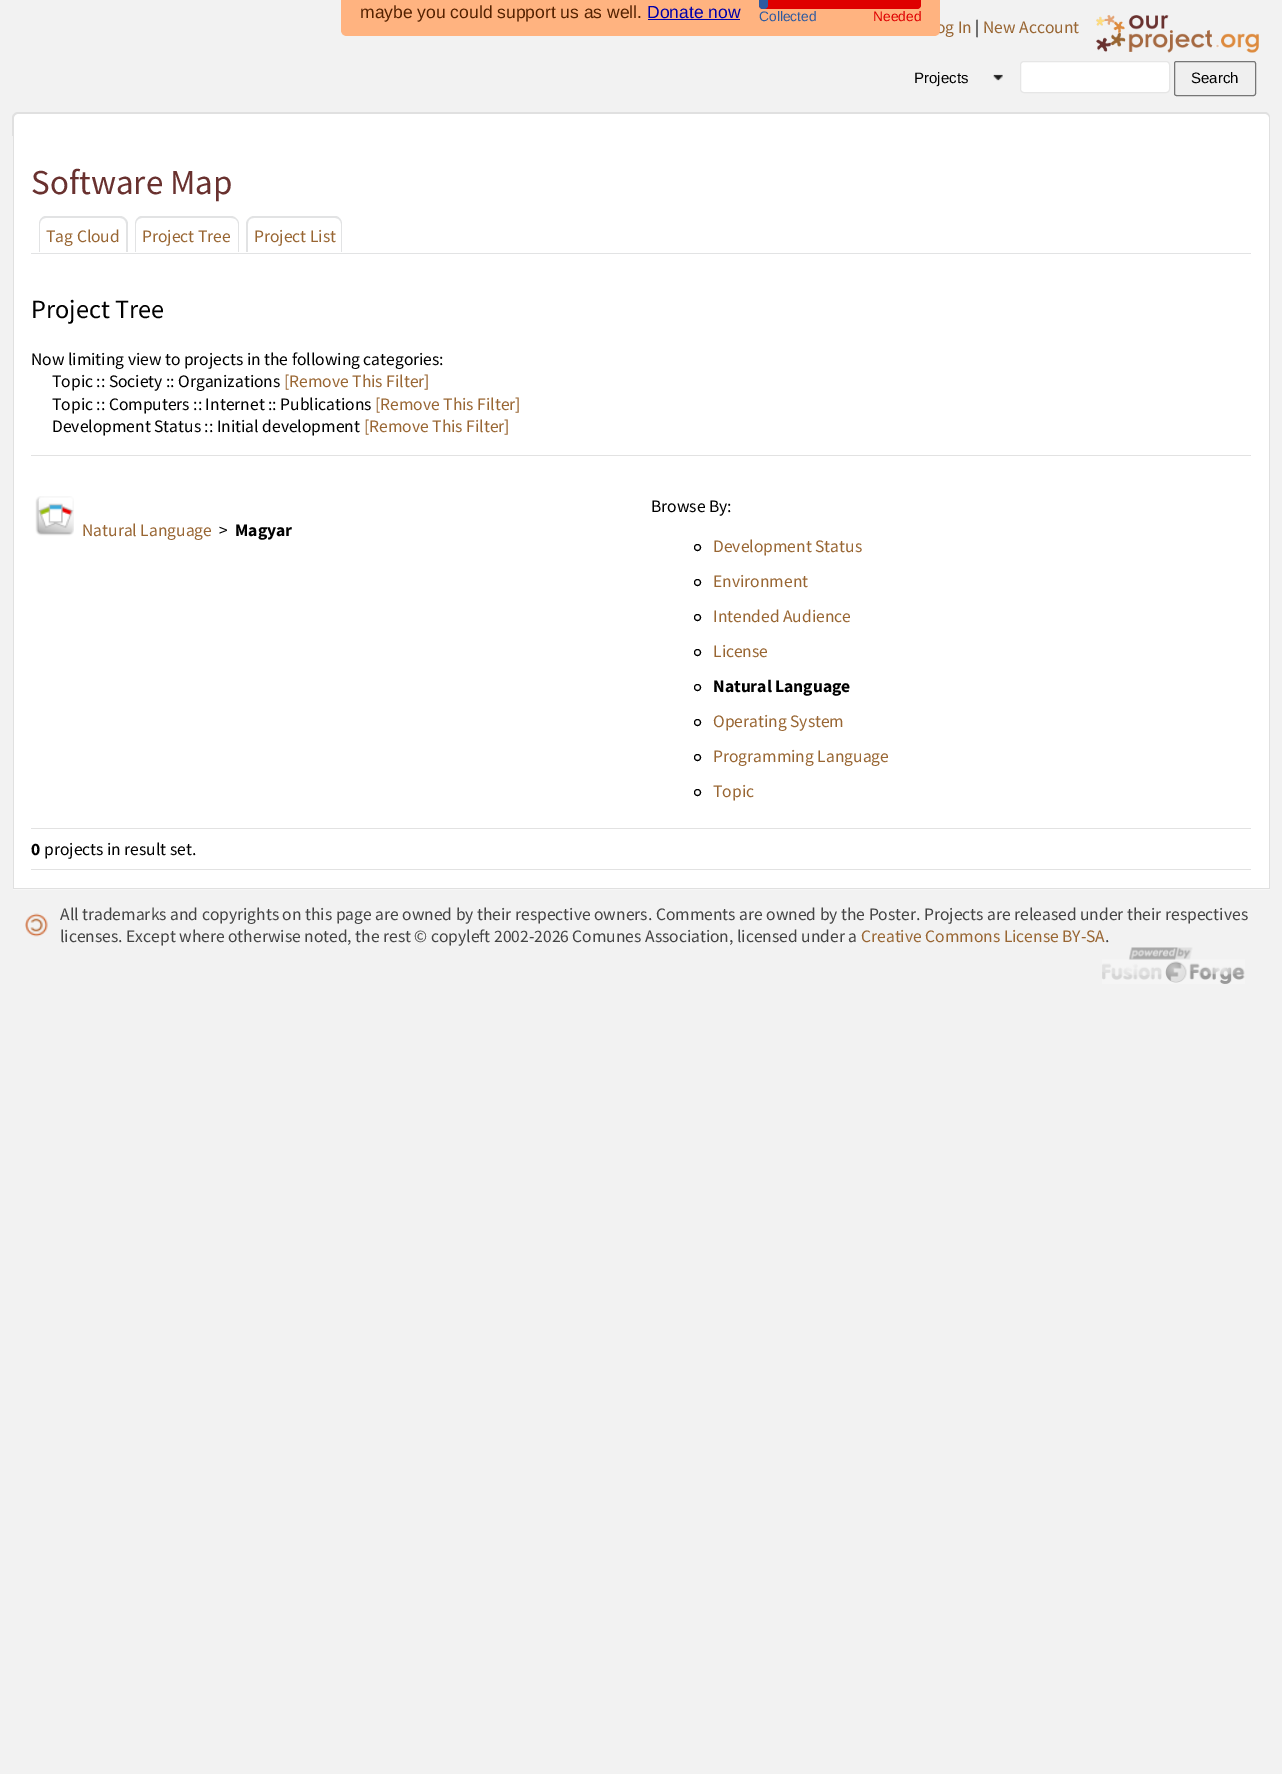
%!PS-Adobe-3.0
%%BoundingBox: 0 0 1282 1774
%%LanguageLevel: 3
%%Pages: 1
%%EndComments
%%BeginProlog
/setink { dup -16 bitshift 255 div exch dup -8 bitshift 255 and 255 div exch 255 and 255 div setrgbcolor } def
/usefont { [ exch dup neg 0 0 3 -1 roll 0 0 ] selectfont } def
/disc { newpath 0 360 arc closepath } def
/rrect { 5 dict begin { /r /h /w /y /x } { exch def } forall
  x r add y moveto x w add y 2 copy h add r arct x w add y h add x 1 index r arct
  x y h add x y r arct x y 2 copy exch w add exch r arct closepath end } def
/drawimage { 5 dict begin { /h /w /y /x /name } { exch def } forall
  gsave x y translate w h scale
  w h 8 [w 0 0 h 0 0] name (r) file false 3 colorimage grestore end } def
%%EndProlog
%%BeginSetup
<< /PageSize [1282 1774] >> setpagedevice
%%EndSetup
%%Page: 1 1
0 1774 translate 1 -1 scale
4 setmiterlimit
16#F2F2F2 setink
0 0 1282 1774 rectfill
/SourceSansPro-Regular 17.5 usefont
16#996633 setink
936 33 moveto (og In) show
16#FFB380 setink
341 -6 moveto 940 -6 lineto 940 30 lineto 940 33.5 937.5 36 934 36 curveto 347 36 lineto 343.5 36 341 33.5 341 30 curveto closepath fill
/LiberationSans-Regular 17.5 usefont
16#552200 setink
360 18 moveto (maybe you could support us as well.) show
16#0000AA setink
647 18 moveto (Donate now) show
648 19 92 1 rectfill
16#DF0000 setink
759 -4 162 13 4 rrect fill
16#2C5AA0 setink
759 -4 9 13 4 rrect fill
/LiberationSans-Regular 13.75 usefont
759 21 moveto (Collected) show
16#DF0000 setink
873 21 moveto (Needed) show
/SourceSansPro-Regular 17.5 usefont
16#000000 setink
975 33 moveto (|) show
16#996633 setink
983 33 moveto (New Account) show
(img1.raw) 1096 15 163 38 drawimage
/LiberationSans-Regular 15 usefont
16#000000 setink
914 83 moveto (Projects) show
(img2.raw) 993 74 10 7 drawimage
16#FFFFFF setink
1020.5 61.5 149 31 3.5 rrect gsave fill grestore
16#E6E6E6 setink
stroke
16#EFEFEF setink
1174.5 61.5 81 34 2 rrect gsave fill grestore
16#767676 setink
stroke
16#000000 setink
1191 83 moveto (Search) show
16#E6E6E6 setink
18 113 moveto 1265 113 lineto 1268 113 1270 115 1270 118 curveto 1270 136 lineto 13 136 lineto 13 118 lineto 13 115 15 113 18 113 curveto closepath fill
16#E0E0E0 setink
18 112 moveto 1265 112 lineto 1268 112 1270 115 1270 118 curveto 1270 136 lineto 12 136 lineto 12 118 lineto 12 115 15 112 18 112 curveto closepath 18 114 moveto 1265 114 lineto 1267 114 1269 115 1269 118 curveto 1269 136 lineto 14 136 lineto 14 118 lineto 14 115 15 114 18 114 curveto closepath eofill
16#FFFFFF setink
19 114 moveto 1264 114 lineto 1267 114 1269 116 1269 119 curveto 1269 136 lineto 14 136 lineto 14 119 lineto 14 116 16 114 19 114 curveto closepath fill
[
    [14 136 1255 752 16#FFFFFF]
    [1269 136 1 753 16#E0E0E0]
    [13 888 1257 1 16#E0E0E0]
    [13 136 1 753 16#E0E0E0]
] { aload pop setink rectfill } forall
/SourceSansPro-Regular 35 usefont
16#69312F setink
31 194 moveto (Software Map) show
16#E2E3E4 setink
31 253 1220 1 rectfill
46 216 moveto 120 216 lineto 124 216 128 220 128 224 curveto 128 252 lineto 39 252 lineto 39 224 lineto 39 220 42 216 46 216 curveto closepath 46 218 moveto 120 218 lineto 123 218 126 220 126 224 curveto 126 252 lineto 40 252 lineto 40 224 lineto 40 220 43 218 46 218 curveto closepath eofill
/SourceSansPro-Regular 17.5 usefont
16#996633 setink
46 242 moveto (Tag Cloud) show
16#E2E3E4 setink
142 216 moveto 231 216 lineto 235 216 239 220 239 224 curveto 239 252 lineto 135 252 lineto 135 224 lineto 135 220 138 216 142 216 curveto closepath 142 218 moveto 231 218 lineto 235 218 238 220 238 224 curveto 238 252 lineto 136 252 lineto 136 224 lineto 136 220 139 218 142 218 curveto closepath eofill
16#996633 setink
142 242 moveto (Project Tree) show
16#E2E3E4 setink
254 216 moveto 335 216 lineto 339 216 342 220 342 224 curveto 342 252 lineto 246 252 lineto 246 224 lineto 246 220 250 216 254 216 curveto closepath 254 218 moveto 335 218 lineto 338 218 341 220 341 224 curveto 341 252 lineto 248 252 lineto 248 224 lineto 248 220 250 218 254 218 curveto closepath eofill
16#996633 setink
254 242 moveto (Project List) show
/SourceSansPro-Regular 26.25 usefont
16#000000 setink
31 318 moveto (Project Tree) show
/SourceSansPro-Regular 17.5 usefont
31 365 moveto (Now limiting view to projects in the following categories:) show
52 387 moveto (Topic :: Society :: Organizations) show
16#996633 setink
284 387 moveto ([Remove This Filter]) show
16#000000 setink
52 410 moveto (Topic :: Computers :: Internet :: Publications) show
16#996633 setink
375 410 moveto ([Remove This Filter]) show
16#000000 setink
52 432 moveto (Development Status :: Initial development) show
16#996633 setink
364 432 moveto ([Remove This Filter]) show
16#E2E2E2 setink
31 455 1220 1 rectfill
(img3.raw) 35 496 39 40 drawimage
16#996633 setink
82 536 moveto (Natural Language) show
16#000000 setink
219 536 moveto (>) show
/SourceSansPro-Bold 17.5 usefont
235 536 moveto (Magyar) show
/SourceSansPro-Regular 17.5 usefont
651 512 moveto (Browse By:) show
697.5 547.5 3 disc stroke
16#996633 setink
713 552 moveto (Development Status) show
16#000000 setink
697.5 582.5 3 disc stroke
16#996633 setink
713 587 moveto (Environment) show
16#000000 setink
697.5 617.5 3 disc stroke
16#996633 setink
713 622 moveto (Intended Audience) show
16#000000 setink
697.5 652.5 3 disc stroke
16#996633 setink
713 657 moveto (License) show
16#000000 setink
697.5 687.5 3 disc stroke
/SourceSansPro-Bold 17.5 usefont
713 692 moveto (Natural Language) show
697.5 722.5 3 disc stroke
/SourceSansPro-Regular 17.5 usefont
16#996633 setink
713 727 moveto (Operating System) show
16#000000 setink
697.5 757.5 3 disc stroke
16#996633 setink
713 762 moveto (Programming Language) show
16#000000 setink
697.5 792.5 3 disc stroke
16#996633 setink
713 797 moveto (Topic) show
16#E2E2E2 setink
31 828 1220 1 rectfill
/SourceSansPro-Bold 17.5 usefont
16#000000 setink
31 855 moveto (0) show
/SourceSansPro-Regular 17.5 usefont
44 855 moveto (projects in result set.) show
16#E2E2E2 setink
31 869 1220 1 rectfill
16#F7F7F7 setink
13 889 1257 1 rectfill
(img4.raw) 25 913 23 24 drawimage
16#444444 setink
60 920 moveto (All trademarks and copyrights on this page are owned by their respective owners. Comments are owned by the Poster. Projects are released under their respectives) show
60 942 moveto (licenses. Except where otherwise noted, the rest © copyleft 2002-2026 Comunes Association, licensed under a) show
16#996633 setink
861 942 moveto (Creative Commons License BY-SA) show
16#444444 setink
1105 942 moveto (.) show
(img5.raw) 1102 947 143 37 drawimage
showpage
%%EOF
